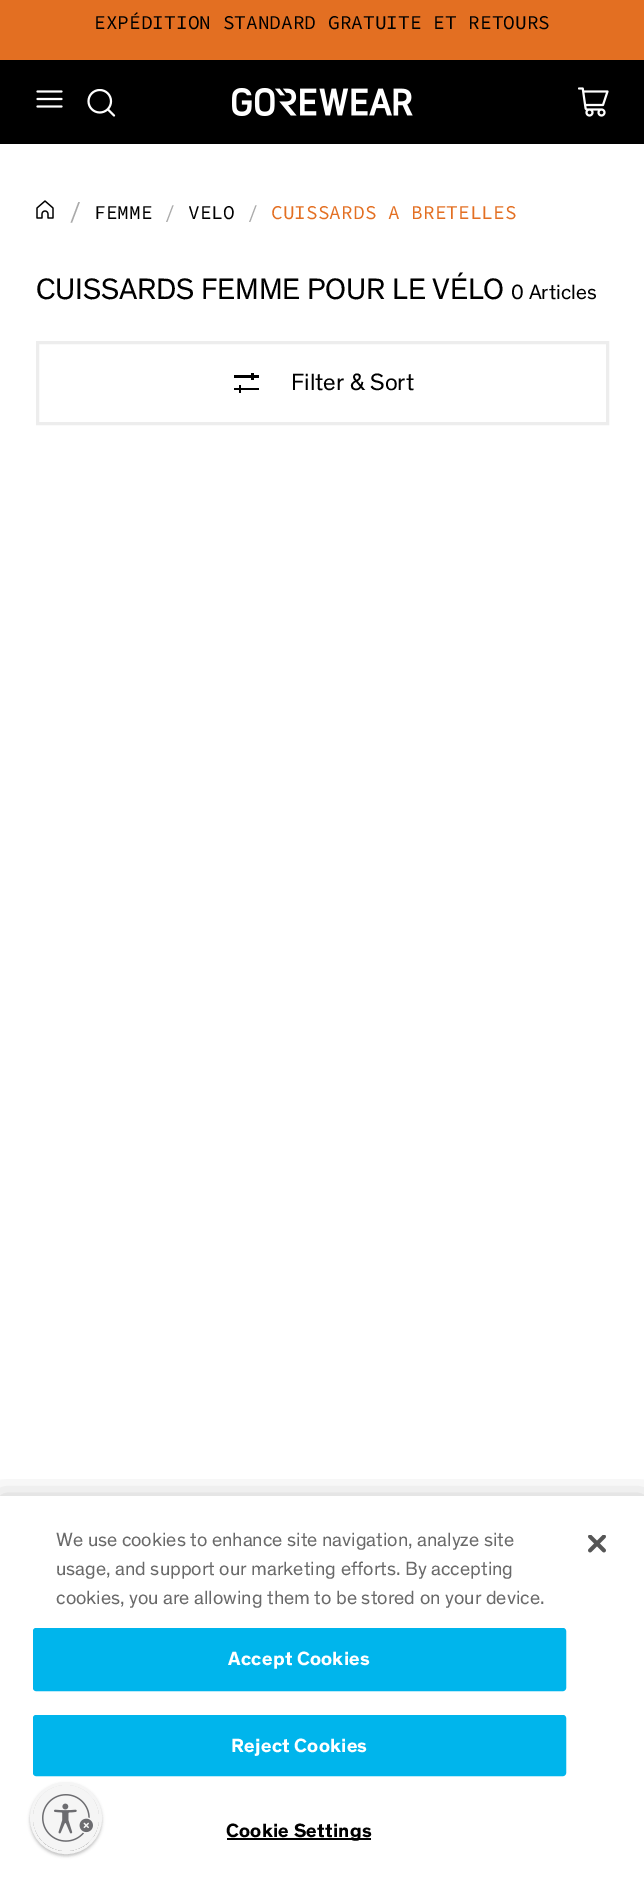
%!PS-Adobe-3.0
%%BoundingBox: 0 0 644 1884
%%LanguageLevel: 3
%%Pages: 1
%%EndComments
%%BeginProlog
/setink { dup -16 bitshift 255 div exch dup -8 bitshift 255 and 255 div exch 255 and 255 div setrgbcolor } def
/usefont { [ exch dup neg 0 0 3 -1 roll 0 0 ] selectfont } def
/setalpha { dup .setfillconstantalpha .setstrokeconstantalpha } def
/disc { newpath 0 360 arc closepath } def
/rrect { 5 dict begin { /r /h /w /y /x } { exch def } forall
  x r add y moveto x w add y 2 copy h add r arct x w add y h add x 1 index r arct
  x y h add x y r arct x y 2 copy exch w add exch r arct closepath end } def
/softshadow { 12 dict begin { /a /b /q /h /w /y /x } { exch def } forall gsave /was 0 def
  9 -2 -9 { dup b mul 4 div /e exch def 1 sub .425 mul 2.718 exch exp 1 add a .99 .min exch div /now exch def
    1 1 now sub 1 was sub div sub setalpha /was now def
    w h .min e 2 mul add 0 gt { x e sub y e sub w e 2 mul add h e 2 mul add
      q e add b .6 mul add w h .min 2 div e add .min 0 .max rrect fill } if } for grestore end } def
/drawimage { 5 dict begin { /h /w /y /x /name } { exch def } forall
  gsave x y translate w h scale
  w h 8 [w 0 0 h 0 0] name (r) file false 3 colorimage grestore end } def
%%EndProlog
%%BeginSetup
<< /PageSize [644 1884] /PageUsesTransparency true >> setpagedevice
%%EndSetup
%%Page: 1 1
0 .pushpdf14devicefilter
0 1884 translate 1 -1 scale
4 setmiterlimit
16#FFFFFF setink
0 0 644 1884 rectfill
16#E36F22 setink
0 0 644 60 rectfill
/SourceCodePro-Regular 19.5 usefont
16#000000 setink
94 29 moveto (EXPÉDITION STANDARD GRATUITE ET RETOURS) show
0 60 644 84 rectfill
(img1.raw) 36 90 27 18 drawimage
(img2.raw) 87 89 29 28 drawimage
(img3.raw) 232 88 181 28 drawimage
(img4.raw) 578 87 31 30 drawimage
(img5.raw) 36 200 18 19 drawimage
/SourceCodePro-Regular 24 usefont
16#AAAAAA setink
68 219 moveto (/) show
/SourceCodePro-Regular 19.5 usefont
16#000000 setink
94 219 moveto (FEMME) show
16#AAAAAA setink
164 219 moveto (/) show
16#000000 setink
188 219 moveto (VELO) show
16#AAAAAA setink
247 219 moveto (/) show
16#E36F22 setink
271 219 moveto (CUISSARDS A BRETELLES) show
/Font-Regular 30 usefont
16#000000 setink
36 299 moveto -0.15 0 (CUISSARDS FEMME POUR LE VÉLO) ashow
/Font-Regular 21 usefont
511 299 moveto (0 Articles) show
16#EDEDED setink
3 setlinewidth
37.5 342.5 570 81 rectstroke
[
    [251 373 3 7 16#000000]
    [239 385 2 8 16#000000]
    [234 375 25 3 16#000000]
    [234 388 25 2 16#000000]
] { aload pop setink rectfill } forall
/Font-Regular 24 usefont
291 390 moveto (Filter & Sort) show
gsave
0 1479 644 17 rectclip
0 1496 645 388 0 13.5 0.2 softshadow
grestore
/Font-Regular 19.5 usefont
16#696969 setink
[
    [(We use cookies to enhance site navigation, analyze site) 56 1546]
    [(usage, and support our marketing efforts. By accepting) 56 1575]
    [(cookies, you are allowing them to be stored on your device.) 56 1604]
] { aload pop moveto show } forall
16#00B5EC setink
34 1629 531 61 2 rrect gsave fill grestore
2 setlinewidth
stroke
/Font-Bold 19.5 usefont
16#FFFFFF setink
228 1665 moveto 0.25 0 (Accept Cookies) ashow
16#00B5EC setink
34 1716 531 59 2 rrect gsave fill grestore
stroke
16#FFFFFF setink
231 1752 moveto 0.25 0 (Reject Cookies) ashow
16#000000 setink
227 1838 144 2 rectfill
226 1837 moveto 0.25 0 (Cookie Settings) ashow
(img6.raw) 588 1535 18 18 drawimage
30 1784 72 72 36 1.5 0.24 softshadow
16#F5F5F5 setink
3 setlinewidth
66 1818 34.5 disc stroke
gsave
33 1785 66 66 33 rrect clip newpath
16#000000 setink
33 1787 66 66 33 1.5 0.24 softshadow
grestore
66 1818 33 disc fill
(img7.raw) 42 1794 51 48 drawimage
.poppdf14devicefilter showpage
%%EOF
